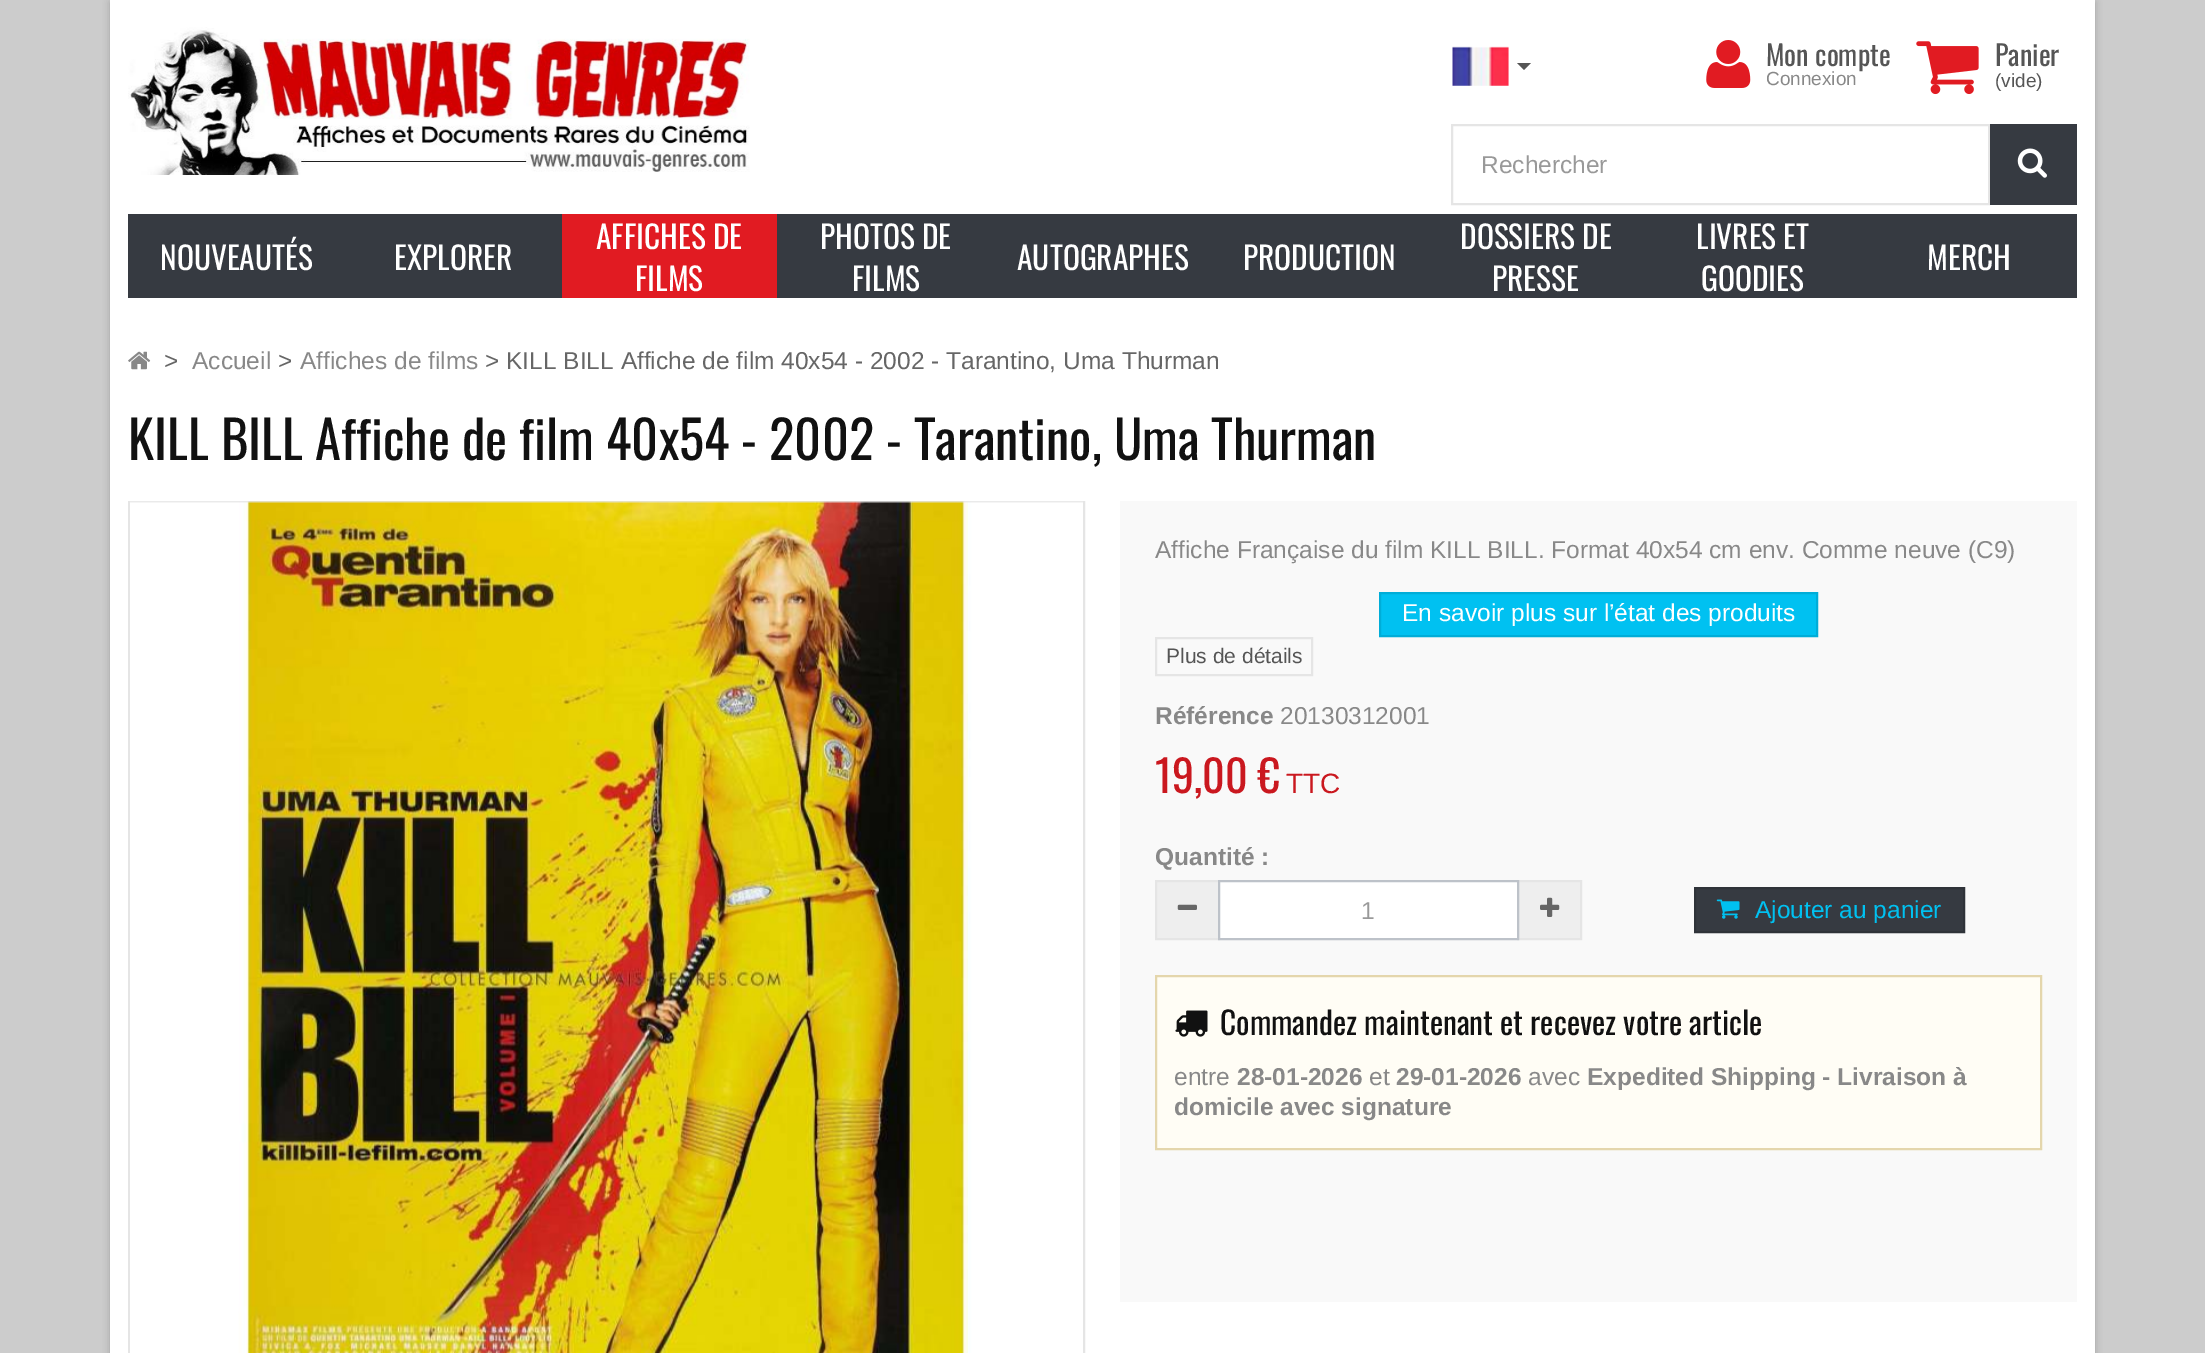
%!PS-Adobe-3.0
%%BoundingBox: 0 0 2205 1353
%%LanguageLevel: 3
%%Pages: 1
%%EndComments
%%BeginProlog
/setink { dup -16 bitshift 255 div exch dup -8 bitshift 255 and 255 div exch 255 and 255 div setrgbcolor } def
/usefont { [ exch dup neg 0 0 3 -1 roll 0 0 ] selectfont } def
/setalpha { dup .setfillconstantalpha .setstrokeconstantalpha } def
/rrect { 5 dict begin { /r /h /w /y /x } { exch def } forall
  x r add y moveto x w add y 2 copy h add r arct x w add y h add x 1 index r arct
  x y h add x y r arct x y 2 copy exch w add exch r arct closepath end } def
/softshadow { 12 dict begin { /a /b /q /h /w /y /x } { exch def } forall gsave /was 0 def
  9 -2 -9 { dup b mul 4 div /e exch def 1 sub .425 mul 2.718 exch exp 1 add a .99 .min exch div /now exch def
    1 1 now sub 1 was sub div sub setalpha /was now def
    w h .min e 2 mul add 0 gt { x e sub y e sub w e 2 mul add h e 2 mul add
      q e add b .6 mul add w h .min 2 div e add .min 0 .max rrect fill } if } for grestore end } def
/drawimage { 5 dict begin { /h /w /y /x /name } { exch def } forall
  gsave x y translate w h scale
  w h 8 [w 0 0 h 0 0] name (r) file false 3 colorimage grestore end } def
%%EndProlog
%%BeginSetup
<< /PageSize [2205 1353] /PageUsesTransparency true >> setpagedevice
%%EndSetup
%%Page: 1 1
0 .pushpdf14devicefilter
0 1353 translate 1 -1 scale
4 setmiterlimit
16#CCCCCC setink
0 0 2205 1353 rectfill
16#000000 setink
110 2 1985 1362 0 3.5 0.2 softshadow
16#FFFFFF setink
110 0 1985 1353 rectfill
(img1.raw) 128 27 622 148 drawimage
(img2.raw) 1452 46 57 40 drawimage
16#555555 setink
1517 63 moveto 1531 63 lineto 1524 70 lineto closepath fill
(img3.raw) 1706 40 45 48 drawimage
/Oswald-Regular 28 usefont
1766 66 moveto (Mon compte) show
/LiberationSans-Regular 19 usefont
16#888888 setink
1766 85 moveto (Connexion) show
(img4.raw) 1916 41 63 54 drawimage
/Oswald-Regular 28 usefont
16#555555 setink
1995 66 moveto (Panier) show
/LiberationSans-Regular 19 usefont
1995 87 moveto (\(vide\)) show
16#E5E5E5 setink
2 setlinewidth
1452 125 537 79 rectstroke
/LiberationSans-Regular 24.5 usefont
16#999999 setink
1481 173 moveto (Rechercher) show
16#363A41 setink
1990 124 87 81 rectfill
(img5.raw) 2017 148 30 30 drawimage
128 214 1949 84 rectfill
/Oswald-Regular 31.5 usefont
16#FFFFFF setink
160 270 moveto (NOUVEAUTÉS) show
394 270 moveto (EXPLORER) show
16#E11B22 setink
562 214 215 84 rectfill
16#FFFFFF setink
[
    [(AFFICHES DE) 596 249]
    [(FILMS) 635 291]
    [(PHOTOS DE) 820 249]
    [(FILMS) 852 291]
    [(AUTOGRAPHES) 1017 270]
    [(PRODUCTION) 1243 270]
    [(DOSSIERS DE) 1460 249]
    [(PRESSE) 1492 291]
    [(LIVRES ET) 1696 249]
    [(GOODIES) 1701 291]
    [(MERCH) 1927 270]
] { aload pop moveto show } forall
(img6.raw) 128 351 23 19 drawimage
/LiberationSans-Regular 24.5 usefont
16#666666 setink
164 369 moveto (>) show
16#888888 setink
192 369 moveto (Accueil) show
16#666666 setink
278 369 moveto (>) show
16#888888 setink
300 369 moveto (Affiches de films) show
16#666666 setink
485 369 moveto (> KILL BILL Affiche de film 40x54 - 2002 - Tarantino, Uma Thurman) show
/Oswald-Regular 52.5 usefont
16#111111 setink
128 460 moveto (KILL BILL Affiche de film 40x54 - 2002 - Tarantino, Uma Thurman) show
16#E5E5E5 setink
129 502 955 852 rectstroke
(img7.raw) 130 501 953 852 drawimage
16#F9F9F9 setink
1120 501 957 801 rectfill
/LiberationSans-Regular 24.5 usefont
16#888888 setink
1155 558 moveto (Affiche Française du film KILL BILL. Format 40x54 cm env. Comme neuve \(C9\)) show
16#00C1F1 setink
1380 593 moveto 1817 593 lineto 1817 636 lineto 1380 636 lineto closepath gsave fill grestore
16#00ADD8 setink
stroke
16#FFFFFF setink
1402 621 moveto (En savoir plus sur l’état des produits) show
16#E5E5E5 setink
1156 638 156 37 rectstroke
/LiberationSans-Regular 21 usefont
16#555555 setink
1166 663 moveto (Plus de détails) show
/LiberationSans-Bold 24.5 usefont
16#888888 setink
1155 724 moveto (Référence) show
/LiberationSans-Regular 24.5 usefont
1280 724 moveto (20130312001) show
/Oswald-Regular 44 usefont
16#CA181F setink
1155 793 moveto (19,00 €) show
/LiberationSans-Regular 28 usefont
1286 793 moveto (TTC) show
/LiberationSans-Bold 24.5 usefont
16#888888 setink
1155 865 moveto (Quantité :) show
16#EEEEEE setink
1156 881 moveto 1219 881 lineto 1219 939 lineto 1156 939 lineto closepath gsave fill grestore
16#E5E5E5 setink
stroke
(img8.raw) 1177 904 20 6 drawimage
16#EEEEEE setink
1518 881 moveto 1581 881 lineto 1581 939 lineto 1518 939 lineto closepath gsave fill grestore
16#E5E5E5 setink
stroke
16#FFFFFF setink
1219 881 moveto 1518 881 lineto 1518 939 lineto 1219 939 lineto closepath gsave fill grestore
16#BDC2C9 setink
stroke
/LiberationSans-Regular 24.5 usefont
16#999999 setink
1361 919 moveto (1) show
(img9.raw) 1540 897 20 20 drawimage
16#363A41 setink
1695 888 moveto 1964 888 lineto 1964 932 lineto 1695 932 lineto closepath gsave fill grestore
16#2F3339 setink
stroke
(img10.raw) 1716 899 24 20 drawimage
16#00C1F1 setink
1755 918 moveto (Ajouter au panier) show
16#FFFDF5 setink
1156 976 moveto 2041 976 lineto 2041 1149 lineto 1156 1149 lineto closepath gsave fill grestore
16#E4D6AC setink
stroke
(img11.raw) 1175 1010 33 27 drawimage
/Oswald-Regular 31.5 usefont
16#111111 setink
1220 1035 moveto (Commandez maintenant et recevez votre article) show
/LiberationSans-Regular 24.5 usefont
16#888888 setink
1174 1085 moveto (entre) show
/LiberationSans-Bold 24.5 usefont
1237 1085 moveto (28-01-2026) show
/LiberationSans-Regular 24.5 usefont
1369 1085 moveto (et) show
/LiberationSans-Bold 24.5 usefont
1396 1085 moveto (29-01-2026) show
/LiberationSans-Regular 24.5 usefont
1528 1085 moveto (avec) show
/LiberationSans-Bold 24.5 usefont
1587 1085 moveto (Expedited Shipping - Livraison à) show
1174 1115 moveto (domicile avec signature) show
.poppdf14devicefilter showpage
%%EOF
